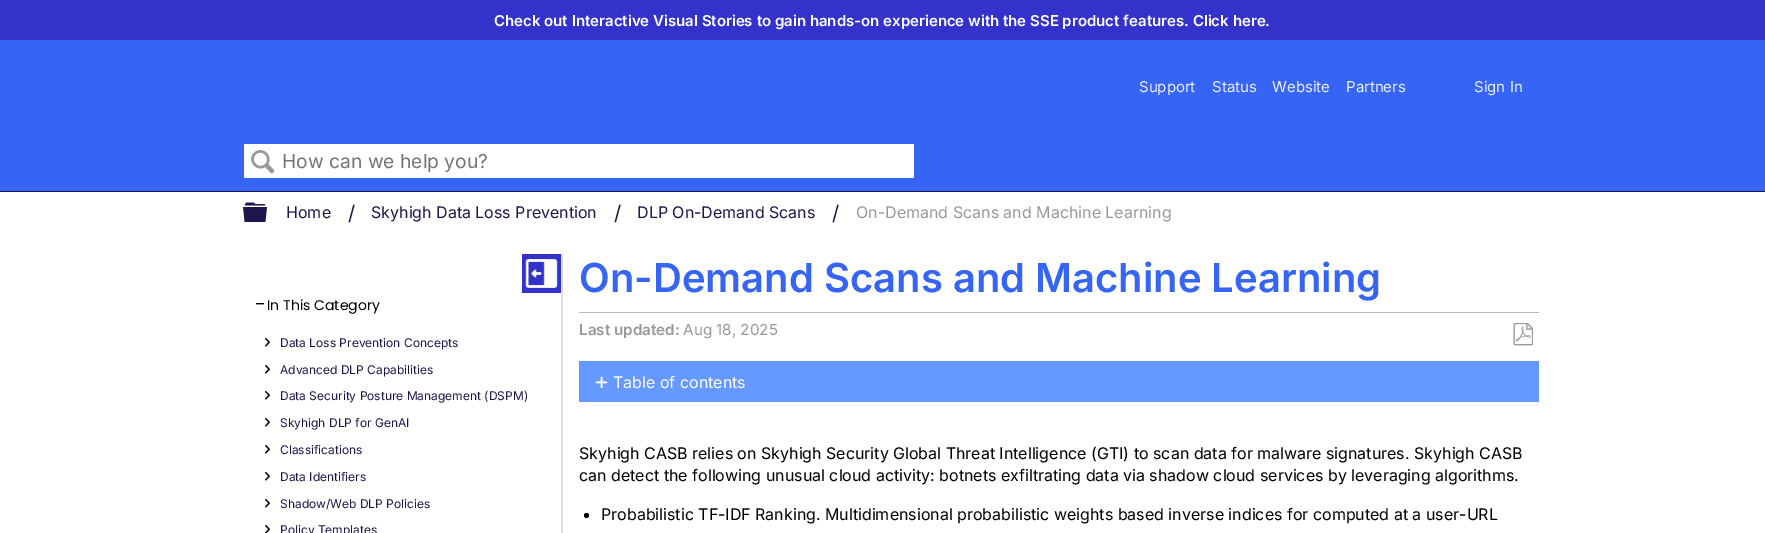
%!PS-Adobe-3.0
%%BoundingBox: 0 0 1765 533
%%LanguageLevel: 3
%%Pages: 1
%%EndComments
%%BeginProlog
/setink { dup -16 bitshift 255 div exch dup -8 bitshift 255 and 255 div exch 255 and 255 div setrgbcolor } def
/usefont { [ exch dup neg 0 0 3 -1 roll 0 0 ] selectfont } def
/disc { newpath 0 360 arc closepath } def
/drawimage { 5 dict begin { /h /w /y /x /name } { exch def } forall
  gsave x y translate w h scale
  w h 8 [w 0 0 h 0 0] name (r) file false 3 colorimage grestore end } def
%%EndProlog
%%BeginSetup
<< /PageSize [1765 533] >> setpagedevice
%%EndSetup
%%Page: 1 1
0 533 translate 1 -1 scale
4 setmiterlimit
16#FFFFFF setink
0 0 1765 533 rectfill
16#3333CC setink
0 0 1765 40 rectfill
/Inter-SemiBold 15 usefont
16#FFFFFF setink
494 26 moveto (Check out Interactive Visual Stories to gain hands-on experience with the SSE product features. Click here.) show
16#3664F4 setink
0 40 1765 94 rectfill
/Inter-Regular 15 usefont
16#EBF0FE setink
[
    [(Support) 1139 92]
    [(Status) 1212 92]
    [(Website) 1272 92]
    [(Partners) 1346 92]
    [(Sign In) 1474 92]
] { aload pop moveto show } forall
16#3664F4 setink
0 134 1765 57 rectfill
16#FFFFFF setink
244 144 670 34 rectfill
(img1.raw) 251 150 24 24 drawimage
/Inter-Regular 19.25 usefont
16#757575 setink
282 168 moveto (How can we help you?) show
16#1C164C setink
0 191 1765 1 rectfill
(img2.raw) 243 202 24 20 drawimage
/Inter-Regular 16 usefont
286 218 moveto (Home) show
/Inter-Regular 20 usefont
348 220 moveto (/) show
/Inter-Regular 16 usefont
371 218 moveto (Skyhigh Data Loss Prevention) show
/Inter-Regular 20 usefont
614 220 moveto (/) show
/Inter-Regular 16 usefont
637 218 moveto (DLP On-Demand Scans) show
/Inter-Regular 20 usefont
832 220 moveto (/) show
/Inter-Regular 16 usefont
16#999999 setink
856 218 moveto (On-Demand Scans and Machine Learning) show
16#DDDDDD setink
561 254 2 279 rectfill
16#3333CC setink
522 254 39 39 rectfill
(img3.raw) 525 259 33 29 drawimage
(img4.raw) 255 303 10 2 drawimage
/Poppins-Regular 14 usefont
16#000000 setink
267 310 moveto (In This Category) show
(img5.raw) 265 337 5 10 drawimage
/Inter-Regular 12 usefont
16#1C164C setink
280 347 moveto (Data Loss Prevention Concepts) show
(img5.raw) 265 364 5 10 drawimage
280 374 moveto (Advanced DLP Capabilities) show
(img5.raw) 265 390 5 10 drawimage
280 400 moveto (Data Security Posture Management \(DSPM\)) show
(img5.raw) 265 417 5 10 drawimage
280 427 moveto (Skyhigh DLP for GenAI) show
(img5.raw) 265 444 5 10 drawimage
280 454 moveto (Classifications) show
(img5.raw) 265 471 5 10 drawimage
280 481 moveto (Data Identifiers) show
(img5.raw) 265 498 5 10 drawimage
280 508 moveto (Shadow/Web DLP Policies) show
(img6.raw) 265 524 5 9 drawimage
280 534 moveto (Policy Templates) show
16#BBB8B8 setink
579 312 960 1 rectfill
/Inter-SemiBold 40 usefont
16#3664F4 setink
579 292 moveto (On-Demand Scans and Machine Learning) show
/Inter-SemiBold 15.25 usefont
16#999999 setink
579 335 moveto (Last updated:) show
/Inter-Regular 15.25 usefont
683 335 moveto (Aug 18, 2025) show
(img7.raw) 1513 323 20 23 drawimage
16#6699FF setink
579 361 960 41 rectfill
(img8.raw) 596 376 12 12 drawimage
/Inter-Regular 16 usefont
16#FFFFFF setink
613 388 moveto (Table of contents) show
16#000000 setink
579 459 moveto (Skyhigh CASB relies on Skyhigh Security Global Threat Intelligence \(GTI\) to scan data for malware signatures. Skyhigh CASB) show
579 481 moveto (can detect the following unusual cloud activity: botnets exfiltrating data via shadow cloud services by leveraging algorithms.) show
586.5 515.5 2.5 disc fill
601 520 moveto (Probabilistic TF-IDF Ranking. Multidimensional probabilistic weights based inverse indices for computed at a user-URL) show
showpage
%%EOF
